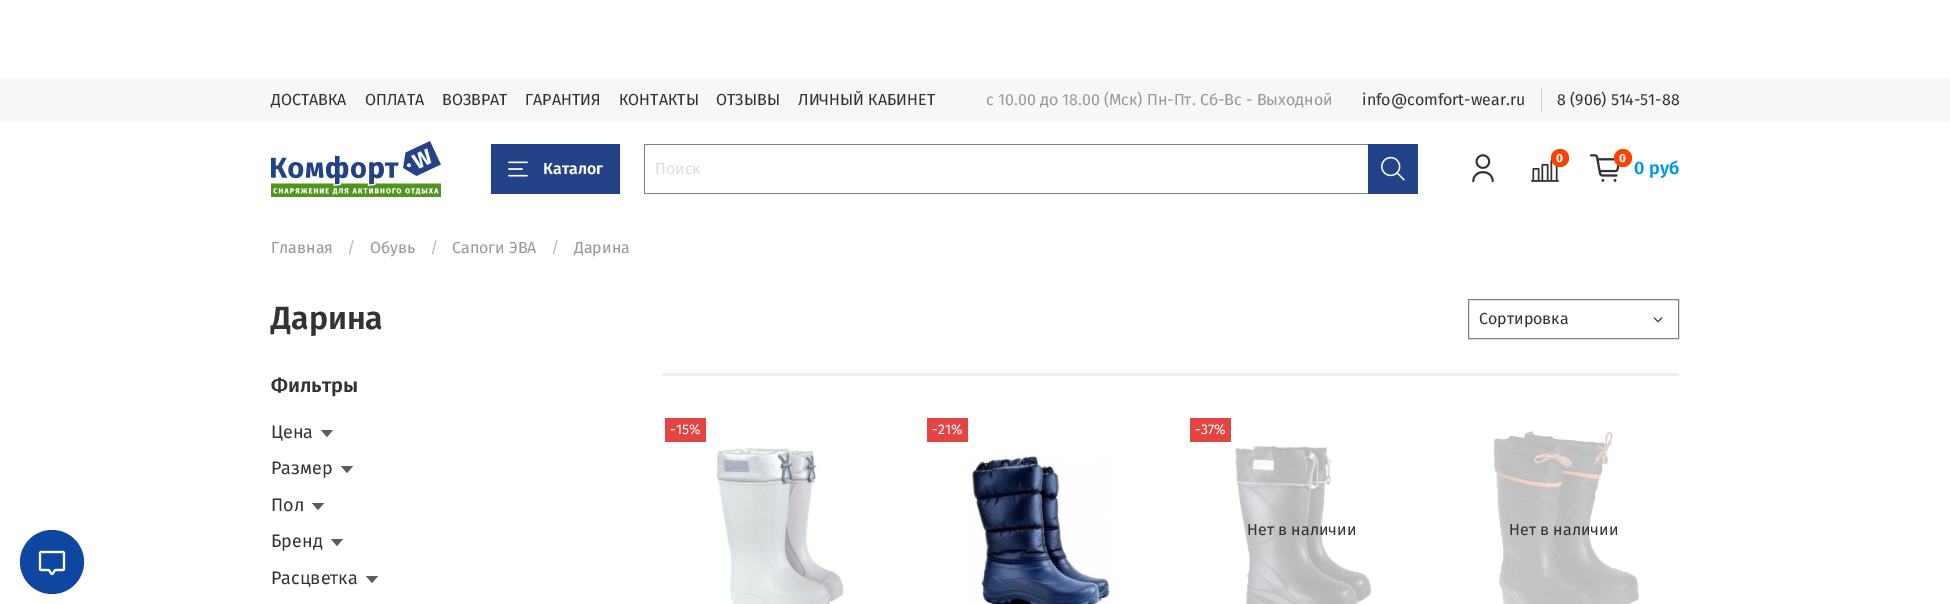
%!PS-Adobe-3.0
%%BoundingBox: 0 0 1950 604
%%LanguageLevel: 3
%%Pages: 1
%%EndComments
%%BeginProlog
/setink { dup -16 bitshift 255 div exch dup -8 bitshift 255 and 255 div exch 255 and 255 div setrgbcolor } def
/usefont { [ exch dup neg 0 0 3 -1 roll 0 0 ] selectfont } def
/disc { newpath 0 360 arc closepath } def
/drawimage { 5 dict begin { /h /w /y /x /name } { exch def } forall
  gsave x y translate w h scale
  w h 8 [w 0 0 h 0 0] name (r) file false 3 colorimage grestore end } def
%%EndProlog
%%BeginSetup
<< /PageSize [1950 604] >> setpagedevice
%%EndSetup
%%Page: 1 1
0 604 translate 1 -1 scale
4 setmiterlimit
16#FFFFFF setink
0 0 1950 604 rectfill
16#0D47A1 setink
52 562 32 disc fill
(img1.raw) 38 550 28 26 drawimage
16#F7F7F7 setink
0 78 1950 44 rectfill
/FiraSans-Regular 16 usefont
16#333333 setink
[
    [(ДОСТАВКА) 271 105]
    [(ОПЛАТА) 365 105]
    [(ВОЗВРАТ) 442 105]
    [(ГАРАНТИЯ) 525 105]
    [(КОНТАКТЫ) 619 105]
    [(ОТЗЫВЫ) 716 105]
    [(ЛИЧНЫЙ КАБИНЕТ) 798 105]
] { aload pop moveto show } forall
16#999999 setink
986 105 moveto (с 10.00 до 18.00 \(Мск\) Пн-Пт. Cб-Вс - Выходной) show
16#CCCCCC setink
1541 88 1 24 rectfill
16#333333 setink
1362 105 moveto (info@comfort-wear.ru) show
1557 105 moveto (8 \(906\) 514-51-88) show
(img2.raw) 271 141 170 56 drawimage
16#234287 setink
491 144 129 50 rectfill
(img3.raw) 508 161 20 16 drawimage
/FiraSans-SemiBold 16 usefont
16#FFFFFF setink
543 174 moveto (Каталог) show
[
    [644 144 724 1 16#808080]
    [644 193 724 1 16#808080]
    [644 144 1 50 16#808080]
] { aload pop setink rectfill } forall
/FiraSans-Regular 16 usefont
16#DDDDDD setink
655 174 moveto (Поиск) show
16#234287 setink
1368 144 50 50 rectfill
(img4.raw) 1381 156 24 25 drawimage
(img5.raw) 1472 154 22 29 drawimage
(img6.raw) 1531 159 28 23 drawimage
16#FF4100 setink
1560 158 9 disc fill
/FiraSans-Bold 12 usefont
16#FFFFFF setink
1556 162 moveto (0) show
(img7.raw) 1590 154 30 28 drawimage
16#FF4100 setink
1623 158 9 disc fill
16#FFFFFF setink
1619 162 moveto (0) show
/FiraSans-SemiBold 18 usefont
16#0097F1 setink
1634 174 moveto (0 руб) show
/FiraSans-Regular 16 usefont
16#999999 setink
271 253 moveto (Главная) show
16#B8B8B8 setink
347 253 moveto (/) show
16#999999 setink
370 253 moveto (Обувь) show
16#B8B8B8 setink
430 253 moveto (/) show
16#999999 setink
452 253 moveto (Сапоги ЭВА) show
16#B8B8B8 setink
551 253 moveto (/) show
16#999999 setink
574 253 moveto (Дарина) show
/FiraSans-SemiBold 32 usefont
16#333333 setink
271 329 moveto (Дарина) show
16#808080 setink
1468.5 299.5 210 39 rectstroke
/FiraSans-Regular 16 usefont
16#333333 setink
1479 324 moveto (Сортировка) show
(img8.raw) 1653 317 10 6 drawimage
/FiraSans-SemiBold 20 usefont
271 392 moveto (Фильтры) show
/FiraSans-Regular 18 usefont
271 438 moveto (Цена) show
16#5C5C5C setink
321 430 moveto 333 430 lineto 327 437 lineto closepath fill
16#333333 setink
271 474 moveto (Размер) show
16#5C5C5C setink
341 466 moveto 353 466 lineto 347 473 lineto closepath fill
16#333333 setink
271 511 moveto (Пол) show
16#5C5C5C setink
312 503 moveto 324 503 lineto 318 510 lineto closepath fill
16#333333 setink
271 547 moveto (Бренд) show
16#5C5C5C setink
331 539 moveto 343 539 lineto 337 546 lineto closepath fill
16#333333 setink
271 584 moveto (Расцветка) show
16#5C5C5C setink
366 576 moveto 378 576 lineto 372 583 lineto closepath fill
16#EDEDED setink
662 373 1017 3 rectfill
16#E44542 setink
665 418 41 24 rectfill
/FiraSans-Regular 14 usefont
16#FFFFFF setink
670 434 moveto (-15%) show
(img9.raw) 716 448 128 156 drawimage
16#E44542 setink
927 418 41 24 rectfill
16#FFFFFF setink
932 434 moveto (-21%) show
(img10.raw) 971 453 140 151 drawimage
16#E44542 setink
1190 418 41 24 rectfill
16#FFFFFF setink
1195 434 moveto (-37%) show
(img11.raw) 1235 445 137 159 drawimage
/FiraSans-Regular 16 usefont
16#333333 setink
1247 535 moveto (Нет в наличии) show
(img12.raw) 1494 431 145 173 drawimage
1509 535 moveto (Нет в наличии) show
showpage
%%EOF
